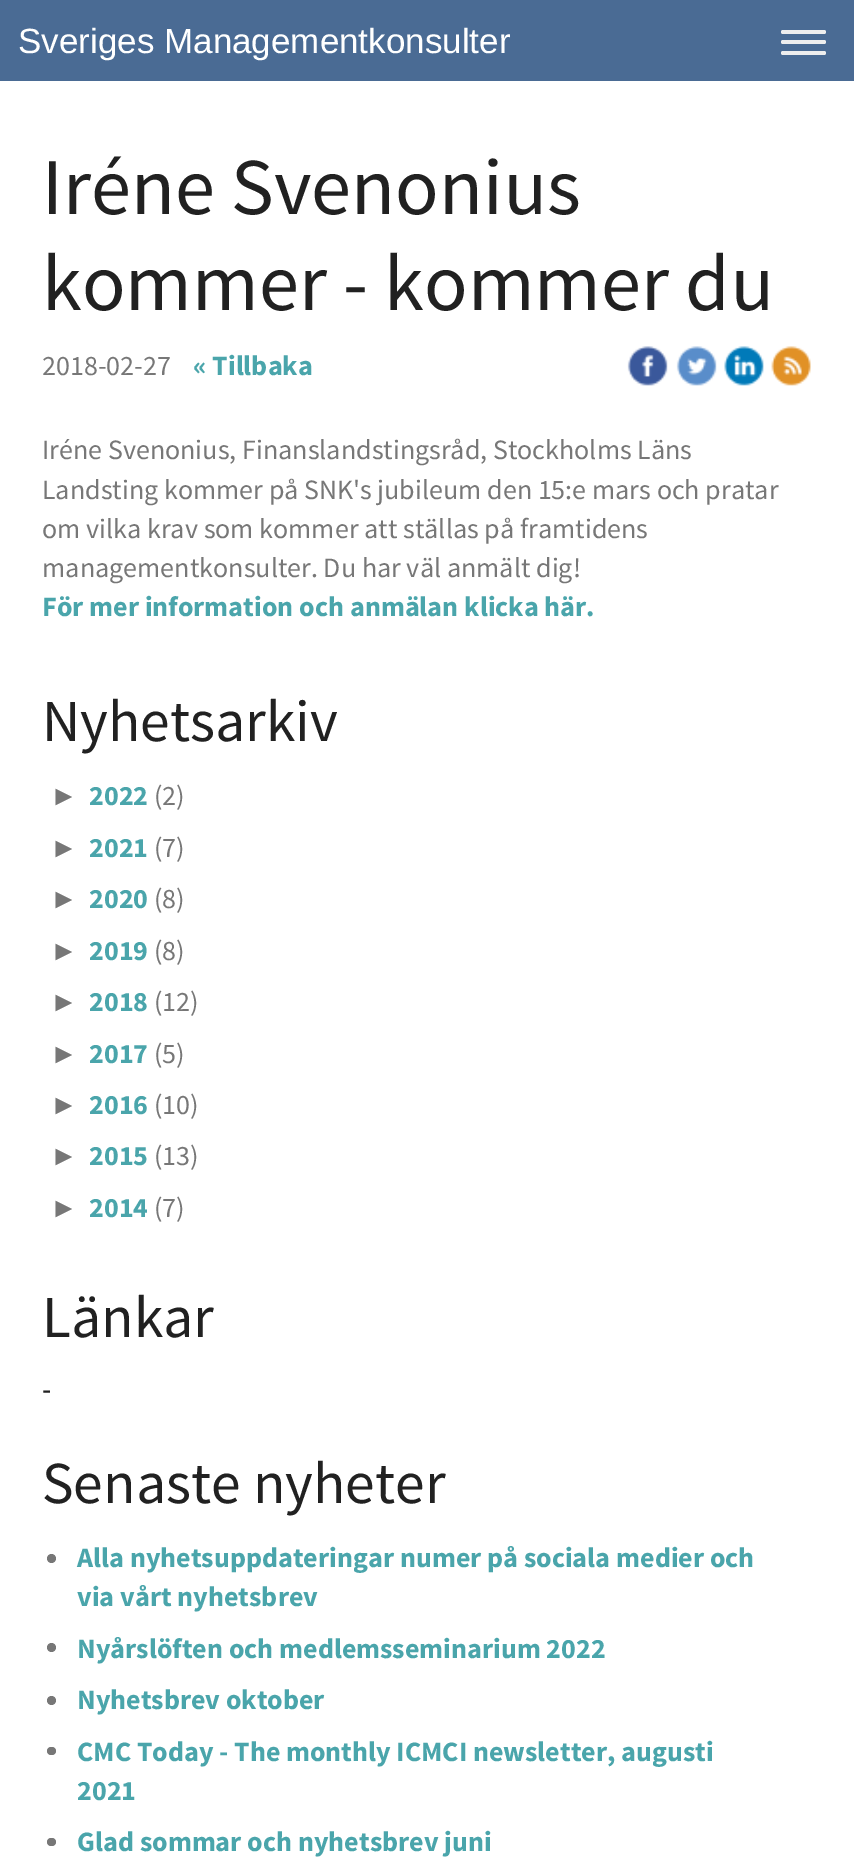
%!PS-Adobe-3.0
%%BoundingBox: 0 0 854 1865
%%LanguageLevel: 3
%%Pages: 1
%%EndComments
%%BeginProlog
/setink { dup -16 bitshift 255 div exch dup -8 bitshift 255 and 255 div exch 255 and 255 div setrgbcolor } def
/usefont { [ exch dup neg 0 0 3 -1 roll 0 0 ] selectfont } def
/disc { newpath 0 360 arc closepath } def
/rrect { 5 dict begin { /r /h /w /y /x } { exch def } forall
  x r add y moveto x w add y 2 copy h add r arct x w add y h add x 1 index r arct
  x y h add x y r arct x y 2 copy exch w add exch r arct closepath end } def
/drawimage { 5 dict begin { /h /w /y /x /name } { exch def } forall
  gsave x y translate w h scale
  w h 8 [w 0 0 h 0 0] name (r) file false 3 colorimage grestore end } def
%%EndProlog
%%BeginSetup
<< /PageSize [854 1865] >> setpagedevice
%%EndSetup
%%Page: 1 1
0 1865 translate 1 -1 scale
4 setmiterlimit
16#FFFFFF setink
0 0 854 1865 rectfill
16#4A6B94 setink
0 0 854 81 rectfill
/LiberationSans-Regular 35 usefont
16#FFFFFF setink
18 53 moveto (Sveriges Managementkonsulter) show
16#EEEEEE setink
781 30 45 4 2 rrect fill
781 40 45 4 2 rrect fill
781 51 45 4 2 rrect fill
/SourceSansPro-Regular 80.5 usefont
16#212121 setink
42 214 moveto (Iréne Svenonius) show
42 310 moveto (kommer - kommer du) show
/SourceSansPro-Regular 28 usefont
16#777777 setink
42 375 moveto (2018-02-27) show
/SourceSansPro-Bold 28 usefont
16#4AA5AB setink
193 375 moveto (« Tillbaka) show
(img1.raw) 627 346 41 40 drawimage
(img2.raw) 676 346 41 40 drawimage
(img3.raw) 724 346 40 40 drawimage
(img4.raw) 771 346 40 40 drawimage
/SourceSansPro-Regular 28 usefont
16#777777 setink
[
    [(Iréne Svenonius, Finanslandstingsråd, Stockholms Läns) 42 459]
    [(Landsting kommer på SNK's jubileum den 15:e mars och pratar) 42 499]
    [(om vilka krav som kommer att ställas på framtidens) 42 538]
    [(managementkonsulter. Du har väl anmält dig!) 42 577]
] { aload pop moveto show } forall
/SourceSansPro-Bold 28 usefont
16#4AA5AB setink
42 616 moveto (För mer information och anmälan klicka här.) show
/SourceSansPro-Regular 59.5 usefont
16#212121 setink
42 741 moveto (Nyhetsarkiv) show
/LiberationSans-Regular 28 usefont
16#777777 setink
50 805 moveto (►) show
/SourceSansPro-Bold 28 usefont
16#4AA5AB setink
89 805 moveto (2022) show
/SourceSansPro-Regular 28 usefont
16#777777 setink
154 805 moveto (\(2\)) show
/LiberationSans-Regular 28 usefont
50 857 moveto (►) show
/SourceSansPro-Bold 28 usefont
16#4AA5AB setink
89 857 moveto (2021) show
/SourceSansPro-Regular 28 usefont
16#777777 setink
154 857 moveto (\(7\)) show
/LiberationSans-Regular 28 usefont
50 908 moveto (►) show
/SourceSansPro-Bold 28 usefont
16#4AA5AB setink
89 908 moveto (2020) show
/SourceSansPro-Regular 28 usefont
16#777777 setink
154 908 moveto (\(8\)) show
/LiberationSans-Regular 28 usefont
50 960 moveto (►) show
/SourceSansPro-Bold 28 usefont
16#4AA5AB setink
89 960 moveto (2019) show
/SourceSansPro-Regular 28 usefont
16#777777 setink
154 960 moveto (\(8\)) show
/LiberationSans-Regular 28 usefont
50 1011 moveto (►) show
/SourceSansPro-Bold 28 usefont
16#4AA5AB setink
89 1011 moveto (2018) show
/SourceSansPro-Regular 28 usefont
16#777777 setink
154 1011 moveto (\(12\)) show
/LiberationSans-Regular 28 usefont
50 1063 moveto (►) show
/SourceSansPro-Bold 28 usefont
16#4AA5AB setink
89 1063 moveto (2017) show
/SourceSansPro-Regular 28 usefont
16#777777 setink
154 1063 moveto (\(5\)) show
/LiberationSans-Regular 28 usefont
50 1114 moveto (►) show
/SourceSansPro-Bold 28 usefont
16#4AA5AB setink
89 1114 moveto (2016) show
/SourceSansPro-Regular 28 usefont
16#777777 setink
154 1114 moveto (\(10\)) show
/LiberationSans-Regular 28 usefont
50 1165 moveto (►) show
/SourceSansPro-Bold 28 usefont
16#4AA5AB setink
89 1165 moveto (2015) show
/SourceSansPro-Regular 28 usefont
16#777777 setink
154 1165 moveto (\(13\)) show
/LiberationSans-Regular 28 usefont
50 1217 moveto (►) show
/SourceSansPro-Bold 28 usefont
16#4AA5AB setink
89 1217 moveto (2014) show
/SourceSansPro-Regular 28 usefont
16#777777 setink
154 1217 moveto (\(7\)) show
/SourceSansPro-Regular 59.5 usefont
16#212121 setink
42 1337 moveto (Länkar) show
/LiberationSans-Regular 28 usefont
42 1399 moveto (-) show
/SourceSansPro-Regular 59.5 usefont
42 1503 moveto (Senaste nyheter) show
16#777777 setink
51.5 1558.5 4.5 disc fill
/SourceSansPro-Bold 28 usefont
16#4AA5AB setink
77 1567 moveto (Alla nyhetsuppdateringar numer på sociala medier och) show
77 1606 moveto (via vårt nyhetsbrev) show
16#777777 setink
51.5 1647.5 4.5 disc fill
16#4AA5AB setink
77 1658 moveto (Nyårslöften och medlemsseminarium 2022) show
16#777777 setink
51.5 1700.5 4.5 disc fill
16#4AA5AB setink
77 1709 moveto (Nyhetsbrev oktober) show
16#777777 setink
47 1747 9 8 4 rrect fill
16#4AA5AB setink
77 1761 moveto (CMC Today - The monthly ICMCI newsletter, augusti) show
77 1800 moveto (2021) show
16#777777 setink
47 1838 9 8 4 rrect fill
16#4AA5AB setink
77 1851 moveto (Glad sommar och nyhetsbrev juni) show
showpage
%%EOF
